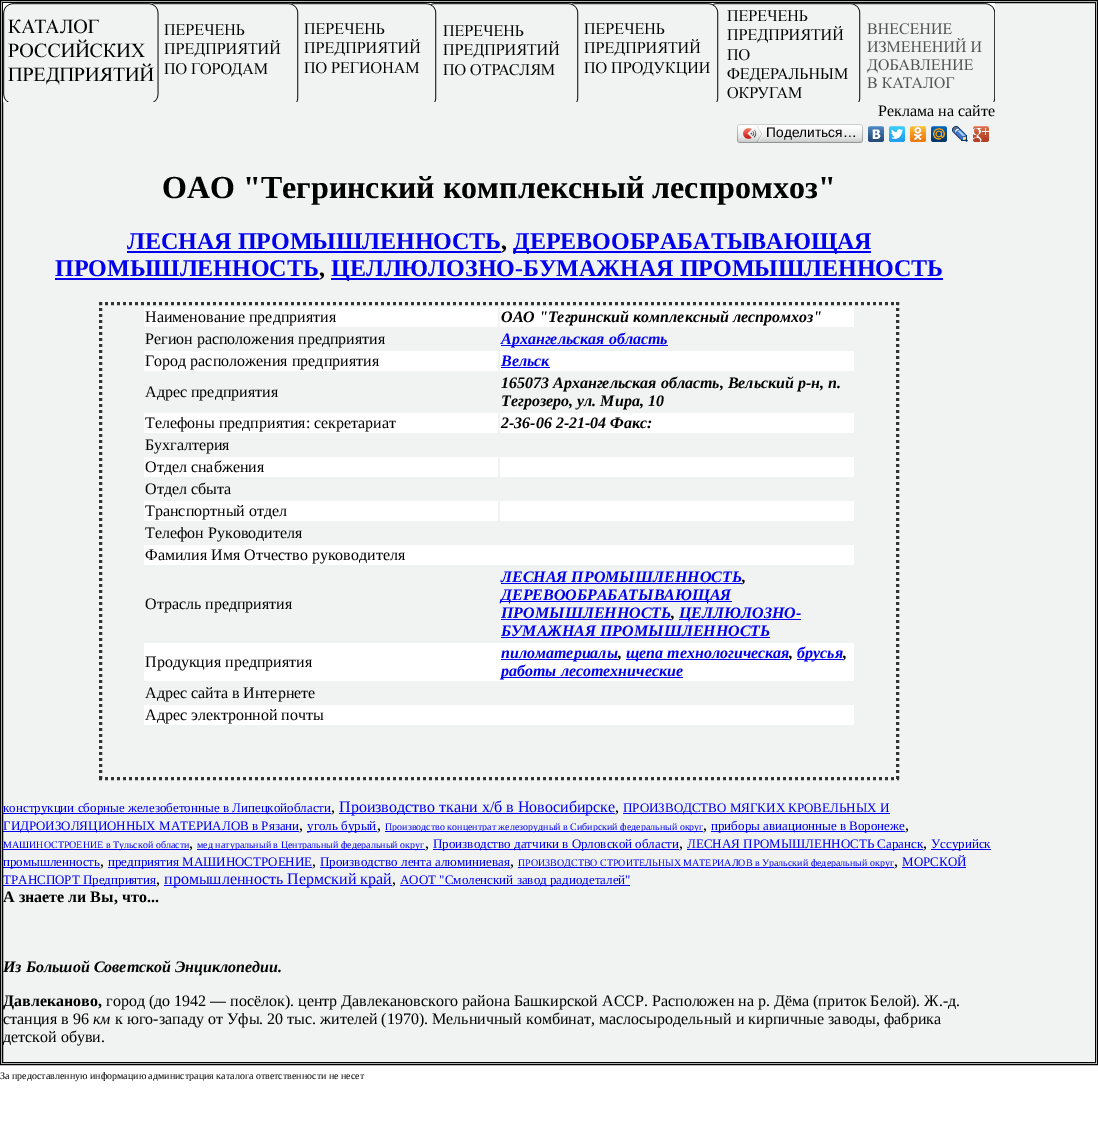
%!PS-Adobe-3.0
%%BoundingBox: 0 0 1098 1125
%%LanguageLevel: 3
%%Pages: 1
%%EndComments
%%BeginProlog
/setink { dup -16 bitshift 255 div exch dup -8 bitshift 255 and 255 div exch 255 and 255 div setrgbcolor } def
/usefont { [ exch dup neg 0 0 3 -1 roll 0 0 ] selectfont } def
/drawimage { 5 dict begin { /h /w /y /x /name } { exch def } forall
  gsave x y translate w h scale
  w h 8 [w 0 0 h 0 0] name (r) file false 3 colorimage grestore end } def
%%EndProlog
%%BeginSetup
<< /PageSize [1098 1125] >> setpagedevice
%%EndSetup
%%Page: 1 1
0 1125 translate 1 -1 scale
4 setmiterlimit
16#FFFFFF setink
0 0 1098 1125 rectfill
16#F1F3F3 setink
0.5 0.5 moveto 1097.5 0.5 lineto 1097.5 1064.5 lineto 0.5 1064.5 lineto closepath gsave fill grestore
16#000000 setink
stroke
2.5 2.5 1093 1060 rectstroke
(img1.raw) 3 3 992 99 drawimage
/LiberationSerif-Regular 16 usefont
878 116 moveto (Реклама на сайте) show
(img2.raw) 740 124 120 19 drawimage
(img3.raw) 737 124 3 19 drawimage
(img4.raw) 743 125 20 17 drawimage
/LiberationSans-Regular 13.75 usefont
766 137 moveto (Поделиться…) show
(img5.raw) 860 124 3 19 drawimage
(img6.raw) 868 126 16 16 drawimage
(img7.raw) 889 126 16 16 drawimage
(img8.raw) 910 126 16 16 drawimage
(img9.raw) 931 126 16 16 drawimage
(img10.raw) 952 126 16 16 drawimage
(img11.raw) 973 126 16 16 drawimage
/LiberationSerif-Bold 32 usefont
162 198 moveto (ОАО "Тегринский комплексный леспромхоз") show
/LiberationSerif-Bold 24 usefont
16#0000EE setink
127 249 moveto (ЛЕСНАЯ ПРОМЫШЛЕННОСТЬ) show
127 251 374 2 rectfill
16#000000 setink
501 249 moveto (,) show
16#0000EE setink
513 251 358 2 rectfill
513 249 moveto (ДЕРЕВООБРАБАТЫВАЮЩАЯ) show
55 276 moveto (ПРОМЫШЛЕННОСТЬ) show
55 278 264 2 rectfill
16#000000 setink
319 276 moveto (,) show
16#0000EE setink
331 278 612 2 rectfill
331 276 moveto (ЦЕЛЛЮЛОЗНО-БУМАЖНАЯ ПРОМЫШЛЕННОСТЬ) show
16#333333 setink
3 setlinewidth
[3 3] 0 setdash
99 303.5 moveto 899 303.5 lineto stroke
897.5 302 moveto 897.5 780 lineto stroke
99 778.5 moveto 899 778.5 lineto stroke
100.5 302 moveto 100.5 780 lineto stroke
16#FFFFFF setink
144 307 354 20 rectfill
/LiberationSerif-Regular 16 usefont
16#000000 setink
145 322 moveto (Наименование предприятия) show
16#FFFFFF setink
500 307 354 20 rectfill
/LiberationSerif-BoldItalic 16 usefont
16#000000 setink
501 322 moveto (ОАО "Тегринский комплексный леспромхоз") show
/LiberationSerif-Regular 16 usefont
145 344 moveto (Регион расположения предприятия) show
16#0000EE setink
501 345 167 1 rectfill
/LiberationSerif-BoldItalic 16 usefont
501 344 moveto (Архангельская область) show
16#FFFFFF setink
144 351 354 20 rectfill
/LiberationSerif-Regular 16 usefont
16#000000 setink
145 366 moveto (Город расположения предприятия) show
16#FFFFFF setink
500 351 354 20 rectfill
/LiberationSerif-BoldItalic 16 usefont
16#0000EE setink
501 366 moveto (Вельск) show
501 367 49 1 rectfill
/LiberationSerif-Regular 16 usefont
16#000000 setink
145 397 moveto (Адрес предприятия) show
/LiberationSerif-BoldItalic 16 usefont
501 388 moveto (165073 Архангельская область, Вельский р-н, п.) show
501 406 moveto (Тегрозеро, ул. Мира, 10) show
16#FFFFFF setink
144 413 354 20 rectfill
/LiberationSerif-Regular 16 usefont
16#000000 setink
145 428 moveto (Телефоны предприятия: секретариат) show
16#FFFFFF setink
500 413 354 20 rectfill
/LiberationSerif-BoldItalic 16 usefont
16#000000 setink
501 428 moveto (2-36-06 2-21-04 Факс:) show
/LiberationSerif-Regular 16 usefont
145 450 moveto (Бухгалтерия) show
16#FFFFFF setink
144 457 354 20 rectfill
16#000000 setink
145 472 moveto (Отдел снабжения) show
16#FFFFFF setink
500 457 354 20 rectfill
16#000000 setink
145 494 moveto (Отдел сбыта) show
16#FFFFFF setink
144 501 354 20 rectfill
16#000000 setink
145 516 moveto (Транспортный отдел) show
16#FFFFFF setink
500 501 354 20 rectfill
16#000000 setink
145 538 moveto (Телефон Руководителя) show
16#FFFFFF setink
144 545 710 20 rectfill
16#000000 setink
145 560 moveto (Фамилия Имя Отчество руководителя) show
145 609 moveto (Отрасль предприятия) show
/LiberationSerif-BoldItalic 16 usefont
16#0000EE setink
501 582 moveto (ЛЕСНАЯ ПРОМЫШЛЕННОСТЬ) show
501 583 241 1 rectfill
16#000000 setink
742 582 moveto (,) show
16#0000EE setink
501 601 231 1 rectfill
501 600 moveto (ДЕРЕВООБРАБАТЫВАЮЩАЯ) show
501 618 moveto (ПРОМЫШЛЕННОСТЬ) show
501 619 170 1 rectfill
16#000000 setink
671 618 moveto (,) show
16#0000EE setink
679 619 122 1 rectfill
679 618 moveto (ЦЕЛЛЮЛОЗНО-) show
501 636 moveto (БУМАЖНАЯ ПРОМЫШЛЕННОСТЬ) show
501 637 269 1 rectfill
16#FFFFFF setink
144 643 710 38 rectfill
/LiberationSerif-Regular 16 usefont
16#000000 setink
145 667 moveto (Продукция предприятия) show
16#0000EE setink
501 659 117 1 rectfill
/LiberationSerif-BoldItalic 16 usefont
501 658 moveto (пиломатериалы) show
16#000000 setink
618 658 moveto (,) show
16#0000EE setink
626 659 163 1 rectfill
626 658 moveto (щепа технологическая) show
16#000000 setink
789 658 moveto (,) show
16#0000EE setink
797 659 46 1 rectfill
797 658 moveto (брусья) show
16#000000 setink
843 658 moveto (,) show
16#0000EE setink
501 677 182 1 rectfill
501 676 moveto (работы лесотехнические) show
/LiberationSerif-Regular 16 usefont
16#000000 setink
145 698 moveto (Адрес сайта в Интернете) show
16#FFFFFF setink
144 705 710 20 rectfill
16#000000 setink
145 720 moveto (Адрес электронной почты) show
16#0000EE setink
3 813 328 1 rectfill
/LiberationSerif-Regular 13 usefont
3 812 moveto (конструкции сборные железобетонные в Липецкойобласти) show
/LiberationSerif-Regular 16 usefont
16#000000 setink
331 812 moveto (,) show
16#0000EE setink
339 813 276 1 rectfill
339 812 moveto (Производство ткани х/б в Новосибирске) show
16#000000 setink
615 812 moveto (,) show
16#0000EE setink
623 813 267 1 rectfill
/LiberationSerif-Regular 13 usefont
623 812 moveto (ПРОИЗВОДСТВО МЯГКИХ КРОВЕЛЬНЫХ И) show
3 831 296 1 rectfill
3 830 moveto (ГИДРОИЗОЛЯЦИОННЫХ МАТЕРИАЛОВ в Рязани) show
/LiberationSerif-Regular 16 usefont
16#000000 setink
299 830 moveto (,) show
16#0000EE setink
307 831 70 1 rectfill
/LiberationSerif-Regular 13 usefont
307 830 moveto (уголь бурый) show
/LiberationSerif-Regular 16 usefont
16#000000 setink
377 830 moveto (,) show
16#0000EE setink
385 831 318 1 rectfill
/LiberationSerif-Regular 10 usefont
385 830 moveto (Производство концентрат железорудный в Сибирский федеральный округ) show
/LiberationSerif-Regular 16 usefont
16#000000 setink
703 830 moveto (,) show
16#0000EE setink
711 831 194 1 rectfill
/LiberationSerif-Regular 13 usefont
711 830 moveto (приборы авиационные в Воронеже) show
/LiberationSerif-Regular 16 usefont
16#000000 setink
905 830 moveto (,) show
16#0000EE setink
3 849 186 1 rectfill
/LiberationSerif-Regular 10 usefont
3 848 moveto (МАШИНОСТРОЕНИЕ в Тульской области) show
/LiberationSerif-Regular 16 usefont
16#000000 setink
189 848 moveto (,) show
16#0000EE setink
197 849 228 1 rectfill
/LiberationSerif-Regular 10 usefont
197 848 moveto (мед натуральный в Центральный федеральный округ) show
/LiberationSerif-Regular 16 usefont
16#000000 setink
425 848 moveto (,) show
16#0000EE setink
433 849 246 1 rectfill
/LiberationSerif-Regular 13 usefont
433 848 moveto (Производство датчики в Орловской области) show
/LiberationSerif-Regular 16 usefont
16#000000 setink
679 848 moveto (,) show
16#0000EE setink
687 849 236 1 rectfill
/LiberationSerif-Regular 13 usefont
687 848 moveto (ЛЕСНАЯ ПРОМЫШЛЕННОСТЬ Саранск) show
/LiberationSerif-Regular 16 usefont
16#000000 setink
923 848 moveto (,) show
16#0000EE setink
931 849 60 1 rectfill
/LiberationSerif-Regular 13 usefont
931 848 moveto (Уссурийск) show
3 867 97 1 rectfill
3 866 moveto (промышленность) show
/LiberationSerif-Regular 16 usefont
16#000000 setink
100 866 moveto (,) show
16#0000EE setink
108 867 204 1 rectfill
/LiberationSerif-Regular 13 usefont
108 866 moveto (предприятия МАШИНОСТРОЕНИЕ) show
/LiberationSerif-Regular 16 usefont
16#000000 setink
312 866 moveto (,) show
16#0000EE setink
320 867 190 1 rectfill
/LiberationSerif-Regular 13 usefont
320 866 moveto (Производство лента алюминиевая) show
/LiberationSerif-Regular 16 usefont
16#000000 setink
510 866 moveto (,) show
16#0000EE setink
518 867 376 1 rectfill
/LiberationSerif-Regular 10 usefont
518 866 moveto (ПРОИЗВОДСТВО СТРОИТЕЛЬНЫХ МАТЕРИАЛОВ в Уральский федеральный округ) show
/LiberationSerif-Regular 16 usefont
16#000000 setink
894 866 moveto (,) show
/LiberationSerif-Regular 13 usefont
16#0000EE setink
902 866 moveto (МОРСКОЙ) show
902 867 64 1 rectfill
3 885 153 1 rectfill
3 884 moveto (ТРАНСПОРТ Предприятия) show
/LiberationSerif-Regular 16 usefont
16#000000 setink
156 884 moveto (,) show
16#0000EE setink
164 885 228 1 rectfill
164 884 moveto (промышленность Пермский край) show
16#000000 setink
392 884 moveto (,) show
16#0000EE setink
400 885 230 1 rectfill
/LiberationSerif-Regular 13 usefont
400 884 moveto (АООТ "Смоленский завод радиодеталей") show
/LiberationSerif-Bold 16 usefont
16#000000 setink
3 902 moveto (А знаете ли Вы, что...) show
/LiberationSerif-BoldItalic 16 usefont
3 972 moveto (Из Большой Советской Энциклопедии.) show
/LiberationSerif-Bold 16 usefont
3 1006 moveto (Давлеканово,) show
/LiberationSerif-Regular 16 usefont
106 1006 moveto (город \(до 1942 — посёлок\). центр Давлекановского района Башкирской АССР. Расположен на р. Дёма \(приток Белой\). Ж.-д.) show
3 1024 moveto (станция в 96) show
/LiberationSerif-Italic 16 usefont
93 1024 moveto (км) show
/LiberationSerif-Regular 16 usefont
115 1024 moveto (к юго-западу от Уфы. 20 тыс. жителей \(1970\). Мельничный комбинат, маслосыродельный и кирпичные заводы, фабрика) show
3 1042 moveto (детской обуви.) show
/LiberationSerif-Regular 10 usefont
0 1079 moveto (За предоставленную информацию администрация каталога ответственности не несет) show
showpage
%%EOF
